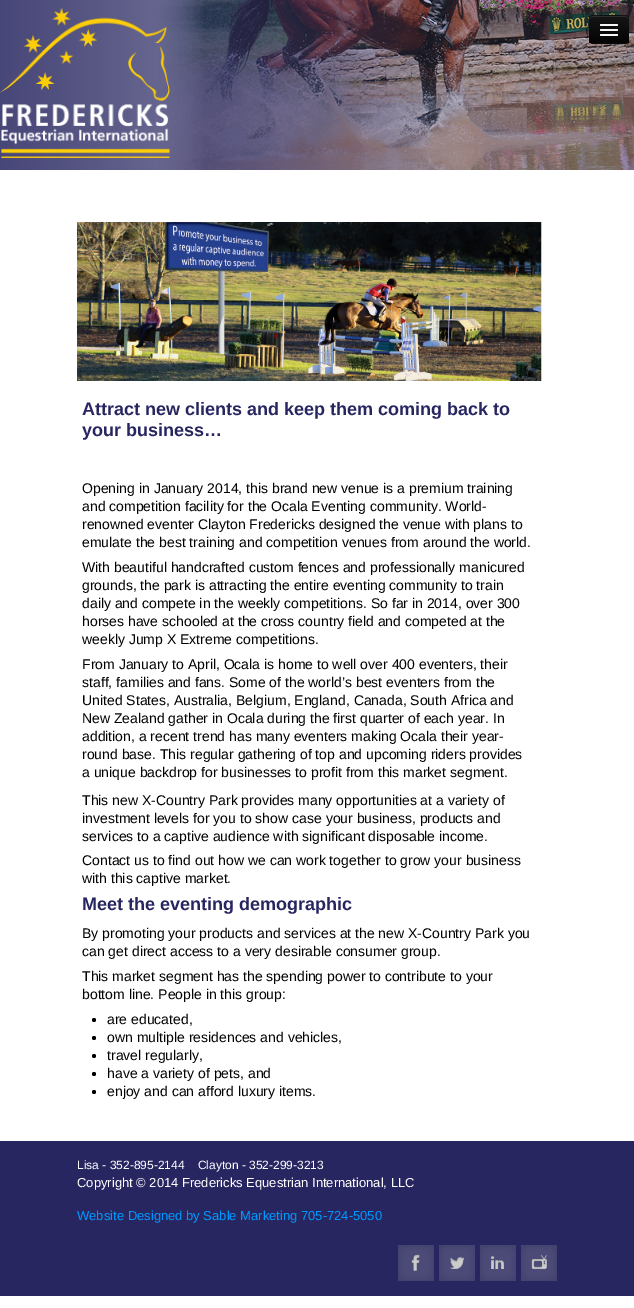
%!PS-Adobe-3.0
%%BoundingBox: 0 0 634 1308
%%LanguageLevel: 3
%%Pages: 1
%%EndComments
%%BeginProlog
/setink { dup -16 bitshift 255 div exch dup -8 bitshift 255 and 255 div exch 255 and 255 div setrgbcolor } def
/usefont { [ exch dup neg 0 0 3 -1 roll 0 0 ] selectfont } def
/setalpha { dup .setfillconstantalpha .setstrokeconstantalpha } def
/disc { newpath 0 360 arc closepath } def
/rrect { 5 dict begin { /r /h /w /y /x } { exch def } forall
  x r add y moveto x w add y 2 copy h add r arct x w add y h add x 1 index r arct
  x y h add x y r arct x y 2 copy exch w add exch r arct closepath end } def
/drawimage { 5 dict begin { /h /w /y /x /name } { exch def } forall
  gsave x y translate w h scale
  w h 8 [w 0 0 h 0 0] name (r) file false 3 colorimage grestore end } def
%%EndProlog
%%BeginSetup
<< /PageSize [634 1308] /PageUsesTransparency true >> setpagedevice
%%EndSetup
%%Page: 1 1
0 .pushpdf14devicefilter
0 1308 translate 1 -1 scale
4 setmiterlimit
16#FFFFFF setink
0 0 634 1308 rectfill
(img1.raw) 0 0 634 170 drawimage
(img2.raw) 0 8 170 150 drawimage
0.07 setalpha
589 40 moveto 589 46 594 45 598 45 curveto 620 45 lineto 624 45 629 46 629 40 curveto 629 42 627 44 625 44 curveto 593 44 lineto 591 44 589 42 589 40 curveto closepath fill
1 setalpha
16#0E0E0E setink
589 15 40 29 4 rrect fill
gsave
589 15 40 29 4 rrect clip newpath
gsave 589 16 moveto 629 16 lineto 629 43 lineto 589 43 lineto closepath clip newpath
<< /ShadingType 2 /ColorSpace /DeviceRGB /Coords [609 16 609 43] /Extend [true true] /Function << /FunctionType 2 /Domain [0 1] /C0 [0.082 0.082 0.082] /C1 [0.016 0.016 0.016] /N 1 >> >> shfill grestore
grestore
16#2C2C2C setink
593 17 moveto 625 17 lineto 627 17 628 18 628 20 curveto 628 15 624 16 619.5 16 curveto 598.5 16 lineto 594 16 590 15 590 20 curveto 590 18 591 17 593 17 curveto closepath fill
0.25 setalpha
16#000000 setink
627.5 42.5 moveto 627 43 626 43.5 625 43.5 curveto 593 43.5 lineto 592 43.5 591 43 590.5 42.5 curveto stroke
1 setalpha
16#0B0B0B setink
600 25.5 moveto 599 27.5 603.5 27 603.5 27 curveto 614.5 27 lineto 614.5 27 619 27.5 618 25.5 curveto 617 26.5 610.5 26 609 26 curveto 607.5 26 601 26.5 600 25.5 curveto closepath fill
16#F5F5F5 setink
600 24 18 2 1 rrect fill
16#080808 setink
600 30.5 moveto 599 32.5 603.5 32 603.5 32 curveto 614.5 32 lineto 614.5 32 619 32.5 618 30.5 curveto 617 31.5 610.5 31 609 31 curveto 607.5 31 601 31.5 600 30.5 curveto closepath fill
16#F5F5F5 setink
600 29 18 2 1 rrect fill
600 34 18 2 1 rrect fill
(img3.raw) 77 222 465 159 drawimage
/LiberationSans-Bold 18 usefont
16#282661 setink
82 415 moveto (Attract new clients and keep them coming back to) show
82 436 moveto (your business…) show
/LiberationSans-Regular 14 usefont
16#000000 setink
[
    [(Opening in January 2014, this brand new venue is a premium training) 82 493]
    [(and competition facility for the Ocala Eventing community. World-) 82 511]
    [(renowned eventer Clayton Fredericks designed the venue with plans to) 82 529]
    [(emulate the best training and competition venues from around the world.) 82 547]
    [(With beautiful handcrafted custom fences and professionally manicured) 82 572]
    [(grounds, the park is attracting the entire eventing community to train) 82 590]
    [(daily and compete in the weekly competitions. So far in 2014, over 300) 82 608]
    [(horses have schooled at the cross country field and competed at the) 82 626]
    [(weekly Jump X Extreme competitions.) 82 644]
    [(From January to April, Ocala is home to well over 400 eventers, their) 82 669]
    [(staff, families and fans. Some of the world’s best eventers from the) 82 687]
    [(United States, Australia, Belgium, England, Canada, South Africa and) 82 705]
    [(New Zealand gather in Ocala during the first quarter of each year. In) 82 723]
    [(addition, a recent trend has many eventers making Ocala their year-) 82 741]
    [(round base. This regular gathering of top and upcoming riders provides) 82 759]
    [(a unique backdrop for businesses to profit from this market segment.) 82 777]
    [(This new X-Country Park provides many opportunities at a variety of) 82 805]
    [(investment levels for you to show case your business, products and) 82 823]
    [(services to a captive audience with significant disposable income.) 82 841]
    [(Contact us to find out how we can work together to grow your business) 82 865]
    [(with this captive market.) 82 883]
] { aload pop moveto show } forall
/LiberationSans-Bold 18 usefont
16#282661 setink
82 910 moveto (Meet the eventing demographic) show
/LiberationSans-Regular 14 usefont
16#000000 setink
[
    [(By promoting your products and services at the new X-Country Park you) 82 938]
    [(can get direct access to a very desirable consumer group.) 82 956]
    [(This market segment has the spending power to contribute to your) 82 981]
    [(bottom line. People in this group:) 82 999]
] { aload pop moveto show } forall
94 1020 2 disc fill
107 1024 moveto (are educated,) show
94 1038 2 disc fill
107 1042 moveto (own multiple residences and vehicles,) show
94 1056 2 disc fill
107 1060 moveto (travel regularly,) show
94 1074 2 disc fill
107 1078 moveto (have a variety of pets, and) show
94 1092 2 disc fill
107 1096 moveto (enjoy and can afford luxury items.) show
16#282661 setink
0 1141 634 155 rectfill
/LiberationSans-Regular 12 usefont
16#FFFFFF setink
77 1169 moveto (Lisa - 352-895-2144    Clayton - 352-299-3213) show
/LiberationSans-Regular 13 usefont
77 1187 moveto (Copyright © 2014 Fredericks Equestrian International, LLC) show
16#0099FF setink
77 1220 moveto (Website Designed by Sable Marketing 705-724-5050) show
(img4.raw) 398 1245 36 36 drawimage
(img5.raw) 439 1245 36 36 drawimage
(img6.raw) 480 1245 36 36 drawimage
(img7.raw) 521 1245 36 36 drawimage
.poppdf14devicefilter showpage
%%EOF
